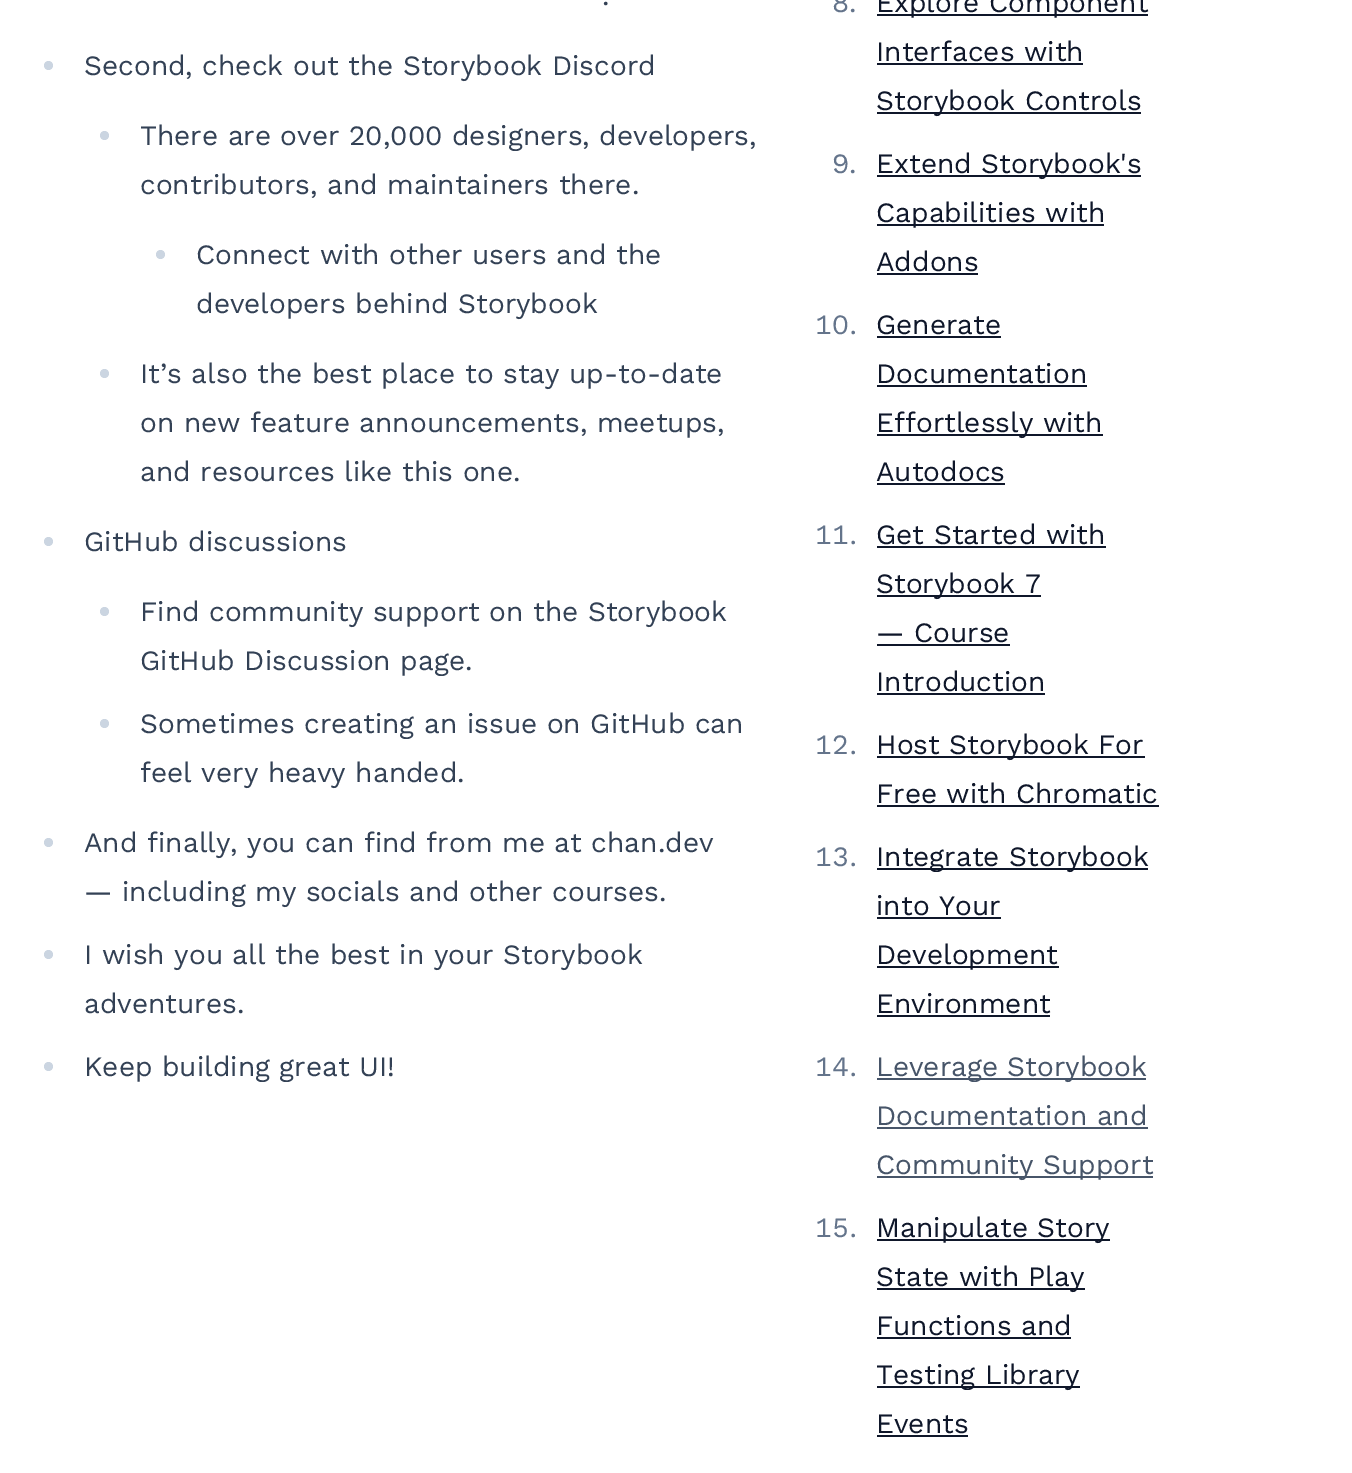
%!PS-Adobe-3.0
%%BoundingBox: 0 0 1352 1473
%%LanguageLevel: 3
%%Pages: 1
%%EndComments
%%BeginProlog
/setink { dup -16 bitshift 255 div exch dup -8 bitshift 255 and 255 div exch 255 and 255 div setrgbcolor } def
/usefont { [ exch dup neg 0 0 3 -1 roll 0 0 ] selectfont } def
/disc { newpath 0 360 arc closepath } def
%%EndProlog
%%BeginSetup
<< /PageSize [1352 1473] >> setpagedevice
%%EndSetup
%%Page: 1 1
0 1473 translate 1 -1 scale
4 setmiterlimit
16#FFFFFF setink
0 0 1352 1473 rectfill
/WorkSans-Regular 28 usefont
16#334155 setink
602 5 moveto (.) show
16#CBD5E1 setink
48.5 65.5 4.5 disc fill
16#334155 setink
84 75 moveto (Second, check out the Storybook Discord) show
16#CBD5E1 setink
104.5 135.5 4.5 disc fill
16#334155 setink
140 145 moveto (There are over 20,000 designers, developers,) show
140 194 moveto (contributors, and maintainers there.) show
16#CBD5E1 setink
160.5 254.5 4.5 disc fill
16#334155 setink
196 264 moveto (Connect with other users and the) show
196 313 moveto (developers behind Storybook) show
16#CBD5E1 setink
104.5 373.5 4.5 disc fill
16#334155 setink
[
    [(It’s also the best place to stay up-to-date) 140 383]
    [(on new feature announcements, meetups,) 140 432]
    [(and resources like this one.) 140 481]
] { aload pop moveto show } forall
16#CBD5E1 setink
48.5 541.5 4.5 disc fill
16#334155 setink
84 551 moveto (GitHub discussions) show
16#CBD5E1 setink
104.5 611.5 4.5 disc fill
16#334155 setink
140 621 moveto (Find community support on the Storybook) show
140 670 moveto (GitHub Discussion page.) show
16#CBD5E1 setink
104.5 723.5 4.5 disc fill
16#334155 setink
140 733 moveto (Sometimes creating an issue on GitHub can) show
140 782 moveto (feel very heavy handed.) show
16#CBD5E1 setink
48.5 842.5 4.5 disc fill
16#334155 setink
84 852 moveto (And finally, you can find from me at chan.dev) show
84 901 moveto (— including my socials and other courses.) show
16#CBD5E1 setink
48.5 954.5 4.5 disc fill
16#334155 setink
84 964 moveto (I wish you all the best in your Storybook) show
84 1013 moveto (adventures.) show
16#CBD5E1 setink
48.5 1066.5 4.5 disc fill
16#334155 setink
84 1076 moveto (Keep building great UI!) show
16#64748B setink
832 12 moveto (8.) show
16#0F172A setink
877 14 271 2 rectfill
876 12 moveto (Explore Component) show
876 61 moveto (Interfaces with) show
877 63 206 2 rectfill
877 112 264 2 rectfill
876 110 moveto (Storybook Controls) show
16#64748B setink
832 173 moveto (9.) show
16#0F172A setink
877 175 264 2 rectfill
876 173 moveto (Extend Storybook's) show
877 224 227 2 rectfill
876 222 moveto (Capabilities with) show
876 271 moveto (Addons) show
877 273 101 2 rectfill
/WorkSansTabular-Regular 28 usefont
16#64748B setink
815 334 moveto (10.) show
/WorkSans-Regular 28 usefont
16#0F172A setink
876 334 moveto (Generate) show
877 336 124 2 rectfill
876 383 moveto (Documentation) show
877 385 210 2 rectfill
877 434 226 2 rectfill
876 432 moveto (Effortlessly with) show
876 481 moveto (Autodocs) show
877 483 128 2 rectfill
/WorkSansTabular-Regular 28 usefont
16#64748B setink
815 544 moveto (11.) show
/WorkSans-Regular 28 usefont
16#0F172A setink
876 544 moveto (Get Started with) show
877 546 229 2 rectfill
877 595 164 2 rectfill
876 593 moveto (Storybook 7) show
876 642 moveto (— Course) show
877 644 133 2 rectfill
876 691 moveto (Introduction) show
877 693 168 2 rectfill
/WorkSansTabular-Regular 28 usefont
16#64748B setink
815 754 moveto (12.) show
16#0F172A setink
877 756 268 2 rectfill
/WorkSans-Regular 28 usefont
876 754 moveto (Host Storybook For) show
876 803 moveto (Free with Chromatic) show
877 805 282 2 rectfill
/WorkSansTabular-Regular 28 usefont
16#64748B setink
815 866 moveto (13.) show
16#0F172A setink
877 868 271 2 rectfill
/WorkSans-Regular 28 usefont
876 866 moveto (Integrate Storybook) show
876 915 moveto (into Your) show
877 917 124 2 rectfill
877 966 182 2 rectfill
876 964 moveto (Development) show
876 1013 moveto (Environment) show
877 1015 173 2 rectfill
/WorkSansTabular-Regular 28 usefont
16#64748B setink
815 1076 moveto (14.) show
16#475569 setink
877 1078 269 2 rectfill
/WorkSans-Regular 28 usefont
876 1076 moveto (Leverage Storybook) show
876 1125 moveto (Documentation and) show
877 1127 271 2 rectfill
877 1176 276 2 rectfill
876 1174 moveto (Community Support) show
/WorkSansTabular-Regular 28 usefont
16#64748B setink
815 1237 moveto (15.) show
16#0F172A setink
877 1239 233 2 rectfill
/WorkSans-Regular 28 usefont
876 1237 moveto (Manipulate Story) show
877 1288 208 2 rectfill
876 1286 moveto (State with Play) show
876 1335 moveto (Functions and) show
877 1337 194 2 rectfill
877 1386 203 2 rectfill
876 1384 moveto (Testing Library) show
876 1433 moveto (Events) show
877 1435 91 2 rectfill
showpage
%%EOF
